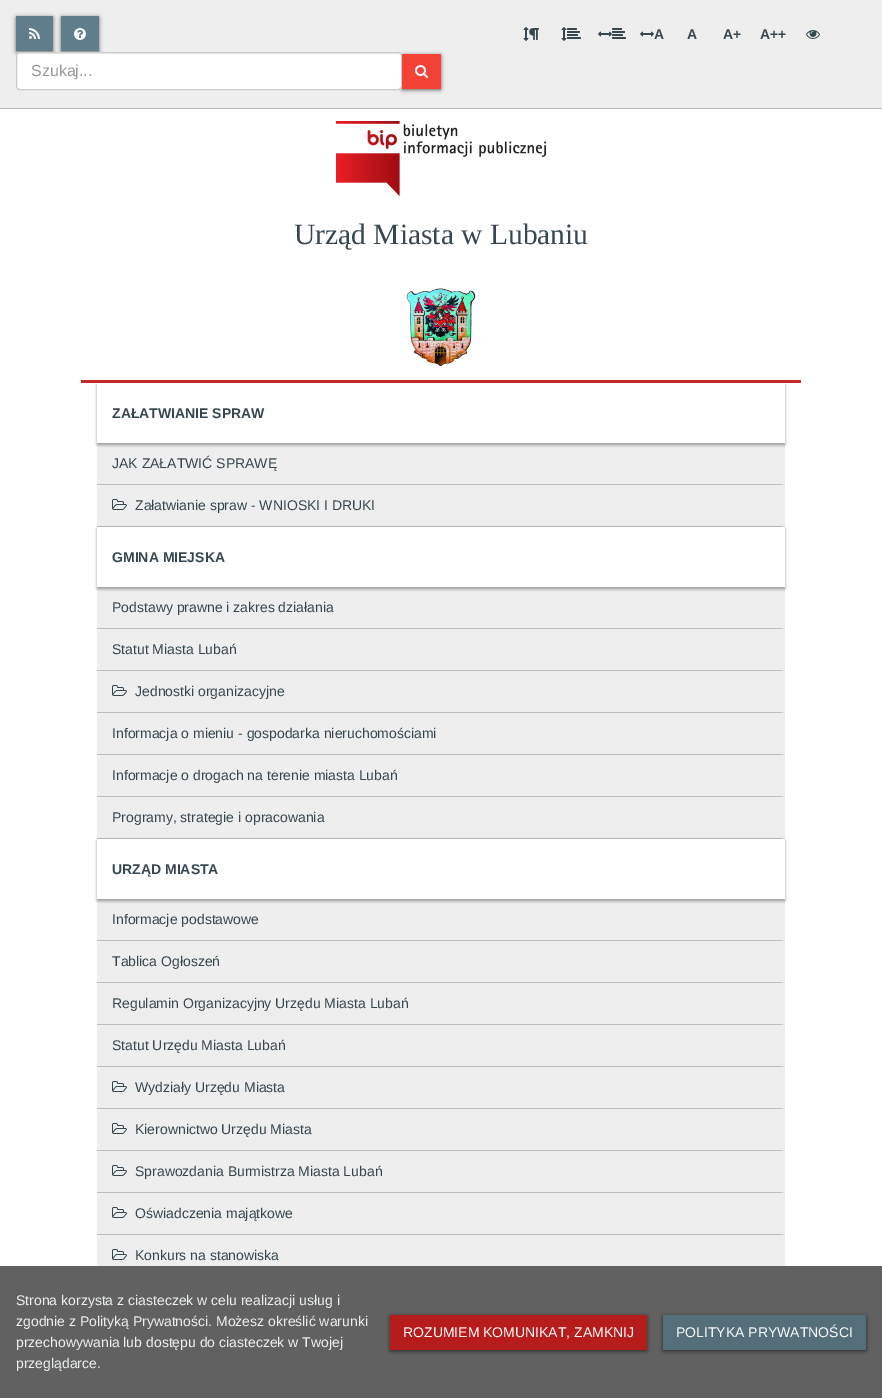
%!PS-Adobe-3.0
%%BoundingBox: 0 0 882 1398
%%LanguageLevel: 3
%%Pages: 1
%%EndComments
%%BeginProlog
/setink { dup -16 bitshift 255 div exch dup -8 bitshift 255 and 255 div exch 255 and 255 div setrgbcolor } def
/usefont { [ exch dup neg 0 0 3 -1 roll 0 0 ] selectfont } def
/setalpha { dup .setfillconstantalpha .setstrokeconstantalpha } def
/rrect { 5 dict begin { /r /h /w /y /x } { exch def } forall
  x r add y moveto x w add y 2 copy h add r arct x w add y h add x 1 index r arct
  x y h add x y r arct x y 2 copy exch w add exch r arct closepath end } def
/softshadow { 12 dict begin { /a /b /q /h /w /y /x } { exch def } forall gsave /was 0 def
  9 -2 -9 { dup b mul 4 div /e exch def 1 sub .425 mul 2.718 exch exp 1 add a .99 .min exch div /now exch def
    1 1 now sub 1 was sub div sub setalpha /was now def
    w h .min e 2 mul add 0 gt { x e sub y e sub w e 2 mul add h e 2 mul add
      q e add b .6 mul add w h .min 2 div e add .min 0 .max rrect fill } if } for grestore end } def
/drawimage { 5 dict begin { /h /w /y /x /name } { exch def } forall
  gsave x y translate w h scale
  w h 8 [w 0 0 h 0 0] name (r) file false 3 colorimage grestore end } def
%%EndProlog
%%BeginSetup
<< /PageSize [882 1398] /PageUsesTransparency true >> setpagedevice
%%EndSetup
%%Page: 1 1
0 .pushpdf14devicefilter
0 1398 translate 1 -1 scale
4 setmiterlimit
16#FFFFFF setink
0 0 882 1398 rectfill
16#EEEEEE setink
0 0 882 108 rectfill
16#BDBDBD setink
0 108 882 1 rectfill
16#000000 setink
16 17 37 35 1 2 0.6 softshadow
16#607D8B setink
16 16 37 35 1 rrect fill
(img1.raw) 29 28 11 11 drawimage
16#000000 setink
61 17 38 35 1 2 0.6 softshadow
16#607D8B setink
61 16 38 35 1 rrect fill
(img2.raw) 74 28 12 12 drawimage
(img3.raw) 523 27 6 14 drawimage
(img4.raw) 529 28 10 12 drawimage
(img3.raw) 561 27 6 14 drawimage
(img5.raw) 567 28 14 11 drawimage
(img6.raw) 598 31 14 6 drawimage
(img5.raw) 612 28 14 11 drawimage
(img6.raw) 640 31 14 6 drawimage
/LiberationSans-Bold 14 usefont
16#37474F setink
[
    [(A) 654 39]
    [(A) 687 39]
    [(A+) 723 39]
    [(A++) 760 39]
] { aload pop moveto show } forall
(img7.raw) 806 30 14 9 drawimage
16#000000 setink
402 55 39 35 1 2 0.6 softshadow
16#FFFFFF setink
17 53 384 36 3 rrect fill
0.07 setalpha
16#000000 setink
20 54 moveto 398 54 lineto 400 54 401 55 401 57 curveto 401 55 400 53 398 53 curveto 20 53 lineto 18 54 lineto 17 57 lineto 17 55 18 54 20 54 curveto closepath fill
1 setalpha
16#CCCCCC setink
16.5 52.5 385 37 3.5 rrect stroke
/LiberationSans-Regular 16 usefont
16#999999 setink
31 76 moveto (Szukaj...) show
16#F44336 setink
402 54 39 35 1 rrect fill
(img8.raw) 415 65 13 13 drawimage
16#C62828 setink
81 380 720 3 rectfill
(img9.raw) 336 121 210 75 drawimage
/LiberationSerif-Regular 29.5 usefont
16#37474F setink
294 244 moveto (Urząd Miasta w Lubaniu) show
(img10.raw) 406 288 70 79 drawimage
16#EEEEEE setink
97 443 688 84 rectfill
gsave
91 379 moveto 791 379 lineto 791 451 lineto 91 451 lineto closepath 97 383 moveto 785 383 lineto 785 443 lineto 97 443 lineto closepath eoclip newpath
16#000000 setink
97 385 688 60 0 1.5 0.24 softshadow
97 385 688 60 0 1.5 0.12 softshadow
grestore
/LiberationSans-Bold 14 usefont
16#37474F setink
112 418 moveto (ZAŁATWIANIE SPRAW) show
16#BDBDBD setink
785 485 moveto 97 485 lineto 97 484 lineto 779 484 lineto closepath fill
/LiberationSans-Regular 14 usefont
16#37474F setink
112 468 moveto (JAK ZAŁATWIĆ SPRAWĘ) show
16#BDBDBD setink
785 527 moveto 97 527 lineto 97 526 lineto 779 526 lineto closepath fill
(img11.raw) 112 499 15 11 drawimage
16#37474F setink
135 510 moveto (Załatwianie spraw - WNIOSKI I DRUKI) show
16#EEEEEE setink
97 587 688 252 rectfill
gsave
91 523 moveto 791 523 lineto 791 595 lineto 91 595 lineto closepath 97 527 moveto 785 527 lineto 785 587 lineto 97 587 lineto closepath eoclip newpath
16#000000 setink
97 529 688 60 0 1.5 0.24 softshadow
97 529 688 60 0 1.5 0.12 softshadow
grestore
/LiberationSans-Bold 14 usefont
16#37474F setink
112 562 moveto (GMINA MIEJSKA) show
16#BDBDBD setink
785 629 moveto 97 629 lineto 97 628 lineto 779 628 lineto closepath fill
/LiberationSans-Regular 14 usefont
16#37474F setink
112 612 moveto (Podstawy prawne i zakres działania) show
16#BDBDBD setink
785 671 moveto 97 671 lineto 97 670 lineto 779 670 lineto closepath fill
16#37474F setink
112 654 moveto (Statut Miasta Lubań) show
16#BDBDBD setink
785 713 moveto 97 713 lineto 97 712 lineto 779 712 lineto closepath fill
(img11.raw) 112 685 15 11 drawimage
16#37474F setink
135 696 moveto (Jednostki organizacyjne) show
16#BDBDBD setink
785 755 moveto 97 755 lineto 97 754 lineto 779 754 lineto closepath fill
16#37474F setink
112 738 moveto (Informacja o mieniu - gospodarka nieruchomościami) show
16#BDBDBD setink
785 797 moveto 97 797 lineto 97 796 lineto 779 796 lineto closepath fill
16#37474F setink
112 780 moveto (Informacje o drogach na terenie miasta Lubań) show
16#BDBDBD setink
785 839 moveto 97 839 lineto 97 838 lineto 779 838 lineto closepath fill
16#37474F setink
112 822 moveto (Programy, strategie i opracowania) show
16#EEEEEE setink
97 899 688 367 rectfill
gsave
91 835 moveto 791 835 lineto 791 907 lineto 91 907 lineto closepath 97 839 moveto 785 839 lineto 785 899 lineto 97 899 lineto closepath eoclip newpath
16#000000 setink
97 841 688 60 0 1.5 0.24 softshadow
97 841 688 60 0 1.5 0.12 softshadow
grestore
/LiberationSans-Bold 14 usefont
16#37474F setink
112 874 moveto (URZĄD MIASTA) show
16#BDBDBD setink
785 941 moveto 97 941 lineto 97 940 lineto 779 940 lineto closepath fill
/LiberationSans-Regular 14 usefont
16#37474F setink
112 924 moveto (Informacje podstawowe) show
16#BDBDBD setink
785 983 moveto 97 983 lineto 97 982 lineto 779 982 lineto closepath fill
16#37474F setink
112 966 moveto (Tablica Ogłoszeń) show
16#BDBDBD setink
785 1025 moveto 97 1025 lineto 97 1024 lineto 779 1024 lineto closepath fill
16#37474F setink
112 1008 moveto (Regulamin Organizacyjny Urzędu Miasta Lubań) show
16#BDBDBD setink
785 1067 moveto 97 1067 lineto 97 1066 lineto 779 1066 lineto closepath fill
16#37474F setink
112 1050 moveto (Statut Urzędu Miasta Lubań) show
16#BDBDBD setink
785 1109 moveto 97 1109 lineto 97 1108 lineto 779 1108 lineto closepath fill
(img11.raw) 112 1081 15 11 drawimage
16#37474F setink
135 1092 moveto (Wydziały Urzędu Miasta) show
16#BDBDBD setink
785 1151 moveto 97 1151 lineto 97 1150 lineto 779 1150 lineto closepath fill
(img11.raw) 112 1123 15 11 drawimage
16#37474F setink
135 1134 moveto (Kierownictwo Urzędu Miasta) show
16#BDBDBD setink
785 1193 moveto 97 1193 lineto 97 1192 lineto 779 1192 lineto closepath fill
(img11.raw) 112 1165 15 11 drawimage
16#37474F setink
135 1176 moveto (Sprawozdania Burmistrza Miasta Lubań) show
16#BDBDBD setink
785 1235 moveto 97 1235 lineto 97 1234 lineto 779 1234 lineto closepath fill
(img11.raw) 112 1207 15 11 drawimage
16#37474F setink
135 1218 moveto (Oświadczenia majątkowe) show
(img11.raw) 112 1249 15 11 drawimage
135 1260 moveto (Konkurs na stanowiska) show
16#616161 setink
0 1266 882 132 rectfill
16#ECEFF1 setink
[
    [(Strona korzysta z ciasteczek w celu realizacji usług i) 16 1305]
    [(zgodnie z Polityką Prywatności. Możesz określić warunki) 16 1326]
    [(przechowywania lub dostępu do ciasteczek w Twojej) 16 1347]
    [(przeglądarce.) 16 1368]
] { aload pop moveto show } forall
16#000000 setink
390 1316 257 35 1 2 0.6 softshadow
16#B71C1C setink
390 1315 257 35 1 rrect fill
16#FAFAFA setink
403 1337 moveto (ROZUMIEM KOMUNIKAT, ZAMKNIJ) show
16#000000 setink
663 1316 203 35 1 2 0.6 softshadow
16#546E7A setink
663 1315 203 35 1 rrect fill
16#FAFAFA setink
676 1337 moveto (POLITYKA PRYWATNOŚCI) show
.poppdf14devicefilter showpage
%%EOF
